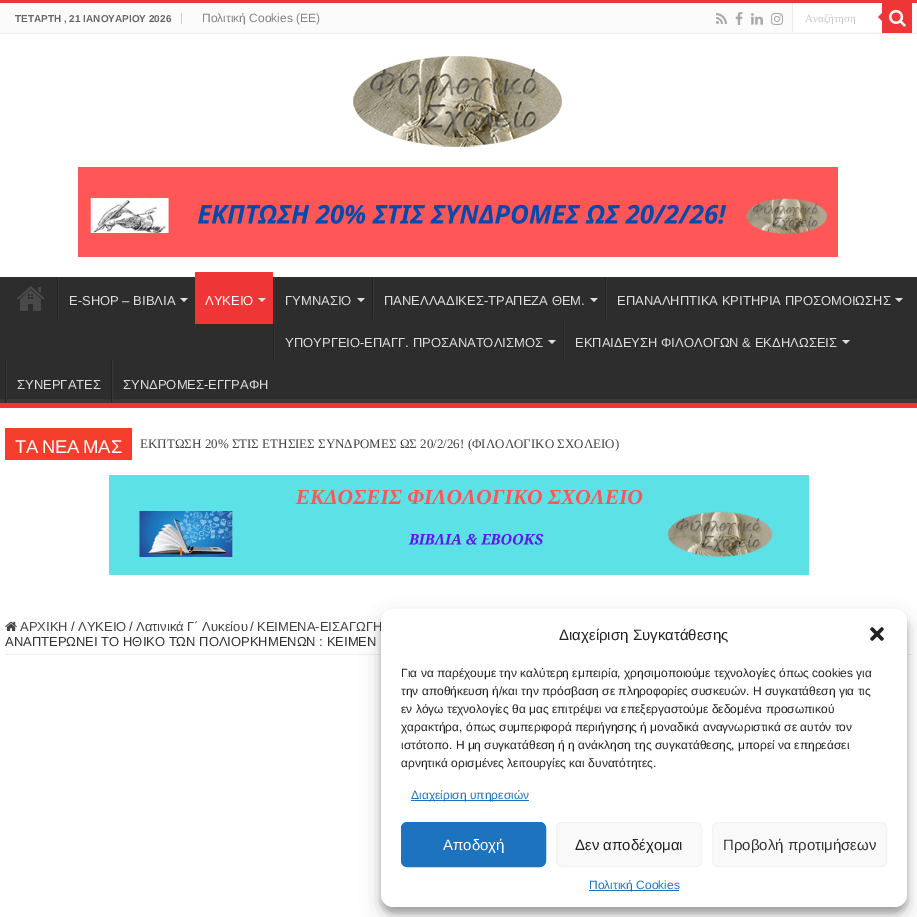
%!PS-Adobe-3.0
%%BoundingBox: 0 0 917 917
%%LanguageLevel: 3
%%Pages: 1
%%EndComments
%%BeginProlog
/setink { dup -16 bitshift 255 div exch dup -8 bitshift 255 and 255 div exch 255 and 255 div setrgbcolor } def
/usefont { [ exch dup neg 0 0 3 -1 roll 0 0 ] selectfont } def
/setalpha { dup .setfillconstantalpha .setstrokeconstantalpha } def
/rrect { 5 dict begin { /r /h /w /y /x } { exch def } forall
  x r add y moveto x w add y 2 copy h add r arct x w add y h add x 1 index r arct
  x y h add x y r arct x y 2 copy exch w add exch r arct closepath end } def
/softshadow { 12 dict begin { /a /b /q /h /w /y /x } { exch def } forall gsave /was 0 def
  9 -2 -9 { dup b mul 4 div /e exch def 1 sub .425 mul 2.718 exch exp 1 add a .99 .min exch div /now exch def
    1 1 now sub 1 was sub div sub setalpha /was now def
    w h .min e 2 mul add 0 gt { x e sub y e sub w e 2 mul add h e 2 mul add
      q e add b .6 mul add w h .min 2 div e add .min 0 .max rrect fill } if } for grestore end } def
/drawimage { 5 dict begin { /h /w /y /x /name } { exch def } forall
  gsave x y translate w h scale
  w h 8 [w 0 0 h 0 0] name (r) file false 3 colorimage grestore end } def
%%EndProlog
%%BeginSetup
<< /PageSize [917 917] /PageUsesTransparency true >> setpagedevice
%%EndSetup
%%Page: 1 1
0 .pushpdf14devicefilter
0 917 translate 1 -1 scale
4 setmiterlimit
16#FFFFFF setink
0 0 917 917 rectfill
[
    [0 0 917 3 16#EF3636]
    [0 3 917 30 16#FBFBFB]
    [0 33 917 1 16#ECECEC]
    [181 13 1 11 16#CCCCCC]
] { aload pop setink rectfill } forall
/LiberationSans-Bold 10 usefont
16#666666 setink
15 22 moveto (ΤΕΤΑΡΤΗ , 21 ΙΑΝΟΥΑΡΙΟΥ 2026) show
/LiberationSans-Regular 12 usefont
16#838383 setink
202 22 moveto (Πολιτική Cookies \(ΕΕ\)) show
(img1.raw) 716 13 11 11 drawimage
(img2.raw) 735 12 8 13 drawimage
(img3.raw) 751 13 12 12 drawimage
(img4.raw) 771 13 12 12 drawimage
16#FFFFFF setink
793 3 89 29 rectfill
16#ECECEC setink
792 3 1 29 rectfill
gsave
805 12 65 12 rectclip
/LiberationSerif-Regular 11 usefont
16#C5C5C5 setink
805 22 moveto (Αναζήτηση) show
grestore
16#EF3636 setink
882 3 30 30 rectfill
(img5.raw) 889 9 17 18 drawimage
882 13 moveto 882 21 lineto 878 17 lineto closepath fill
(img6.raw) 353 56 209 91 drawimage
(img7.raw) 78 167 760 90 drawimage
16#2D2D2D setink
0 277 917 122 rectfill
gsave
0 277 917 126 rectclip
16#393939 setink
-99 178 moveto 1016 178 lineto 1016 502 lineto -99 502 lineto closepath -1 271 moveto 917 271 lineto 917 272 lineto 917 398 lineto 916 399 lineto -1 399 lineto -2 398 lineto -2 272 lineto closepath eofill
grestore
16#EF3636 setink
0 403 917 5 rectfill
(img8.raw) 16 286 29 25 drawimage
16#222222 setink
57 277 1 42 rectfill
16#383838 setink
58 277 1 42 rectfill
/LiberationSans-Regular 13 usefont
16#DDDDDD setink
69 305 moveto (E-SHOP – ΒΙΒΛΙΑ) show
180 298 moveto 188 298 lineto 184 302 lineto closepath fill
16#EF3636 setink
195 272 78 52 rectfill
16#FFFFFF setink
205 305 moveto (ΛΥΚΕΙΟ) show
16#DDDDDD setink
258 298 moveto 266 298 lineto 262 302 lineto closepath fill
16#222222 setink
273 277 1 84 rectfill
16#383838 setink
274 277 1 84 rectfill
16#DDDDDD setink
285 305 moveto (ΓΥΜΝΑΣΙΟ) show
357 298 moveto 365 298 lineto 361 302 lineto closepath fill
16#222222 setink
372 277 1 42 rectfill
16#383838 setink
373 277 1 42 rectfill
16#DDDDDD setink
384 305 moveto (ΠΑΝΕΛΛΑΔΙΚΕΣ-ΤΡΑΠΕΖΑ ΘΕΜ.) show
590 298 moveto 598 298 lineto 594 302 lineto closepath fill
16#222222 setink
605 277 1 42 rectfill
16#383838 setink
606 277 1 42 rectfill
16#DDDDDD setink
617 305 moveto (ΕΠΑΝΑΛΗΠΤΙΚΑ ΚΡΙΤΗΡΙΑ ΠΡΟΣΟΜΟΙΩΣΗΣ) show
895 298 moveto 903 298 lineto 899 302 lineto closepath fill
285 347 moveto (ΥΠΟΥΡΓΕΙΟ-ΕΠΑΓΓ. ΠΡΟΣΑΝΑΤΟΛΙΣΜΟΣ) show
548 340 moveto 556 340 lineto 552 344 lineto closepath fill
16#222222 setink
563 319 1 42 rectfill
16#383838 setink
564 319 1 42 rectfill
16#DDDDDD setink
575 347 moveto (ΕΚΠΑΙΔΕΥΣΗ ΦΙΛΟΛΟΓΩΝ & ΕΚΔΗΛΩΣΕΙΣ) show
842 340 moveto 850 340 lineto 846 344 lineto closepath fill
16#222222 setink
5 361 1 42 rectfill
16#383838 setink
6 361 1 42 rectfill
16#DDDDDD setink
17 389 moveto (ΣΥΝΕΡΓΑΤΕΣ) show
16#222222 setink
111 361 1 42 rectfill
16#383838 setink
112 361 1 42 rectfill
16#DDDDDD setink
123 389 moveto (ΣΥΝΔΡΟΜΕΣ-ΕΓΓΡΑΦΗ) show
16#F43D2A setink
5 428 127 32 rectfill
/LiberationSans-Regular 18.5 usefont
16#FFFFFF setink
15 453 moveto -2 0 32 (ΤΑ ΝΕΑ ΜΑΣ) widthshow
/LiberationSerif-Regular 13 usefont
16#444444 setink
140 448 moveto (ΕΚΠΤΩΣΗ 20% ΣΤΙΣ ΕΤΗΣΙΕΣ ΣΥΝΔΡΟΜΕΣ ΩΣ 20/2/26! \(ΦΙΛΟΛΟΓΙΚΟ ΣΧΟΛΕΙΟ\)) show
(img9.raw) 109 475 700 100 drawimage
16#EEEEEE setink
5 654 907 1 rectfill
(img10.raw) 5 621 12 10 drawimage
/LiberationSans-Regular 13 usefont
16#444444 setink
20 631 moveto (ΑΡΧΙΚΗ) show
16#333333 setink
71 631 moveto (/) show
16#444444 setink
78 631 moveto (ΛΥΚΕΙΟ) show
16#333333 setink
129 631 moveto (/) show
16#444444 setink
136 631 moveto (Λατινικά Γ΄ Λυκείου) show
16#333333 setink
250 631 moveto (/) show
16#444444 setink
257 631 moveto (ΚΕΙΜΕΝΑ-ΕΙΣΑΓΩΓΗ) show
16#333333 setink
5 646 moveto (ΑΝΑΠΤΕΡΩΝΕΙ ΤΟ ΗΘΙΚΟ ΤΩΝ ΠΟΛΙΟΡΚΗΜΕΝΩΝ : ΚΕΙΜΕΝ) show
16#000000 setink
381 615 526 298 12 3 0.23 softshadow
381 619 526 298 12 10 0.19 softshadow
16#FFFFFF setink
381 609 526 298 12 rrect fill
/LiberationSans-Regular 15 usefont
16#222222 setink
559 640 moveto (Διαχείριση Συγκατάθεσης) show
(img11.raw) 870 627 14 14 drawimage
/LiberationSans-Regular 12 usefont
[
    [(Για να παρέχουμε την καλύτερη εμπειρία, χρησιμοποιούμε τεχνολογίες όπως cookies για) 401 677]
    [(την αποθήκευση ή/και την πρόσβαση σε πληροφορίες συσκευών. Η συγκατάθεση για τις) 401 695]
    [(εν λόγω τεχνολογίες θα μας επιτρέψει να επεξεργαστούμε δεδομένα προσωπικού) 401 713]
    [(χαρακτήρα, όπως συμπεριφορά περιήγησης ή μοναδικά αναγνωριστικά σε αυτόν τον) 401 731]
    [(ιστότοπο. Η μη συγκατάθεση ή η ανάκληση της συγκατάθεσης, μπορεί να επηρεάσει) 401 749]
    [(αρνητικά ορισμένες λειτουργίες και δυνατότητες.) 401 767]
] { aload pop moveto show } forall
16#1E73BE setink
411 800 118 1 rectfill
411 799 moveto (Διαχείριση υπηρεσιών) show
401.5 822.5 144 44 5.5 rrect gsave fill grestore
stroke
/LiberationSans-Regular 15 usefont
16#FFFFFF setink
443 850 moveto (Αποδοχή) show
16#F9F9F9 setink
556.5 822.5 145 44 5.5 rrect gsave fill grestore
16#F2F2F2 setink
stroke
16#222222 setink
575 850 moveto (Δεν αποδέχομαι) show
16#F9F9F9 setink
712.5 822.5 174 44 5.5 rrect gsave fill grestore
16#F2F2F2 setink
stroke
16#333333 setink
723 850 moveto (Προβολή προτιμήσεων) show
16#1E73BE setink
589 890 90 1 rectfill
/LiberationSans-Regular 12 usefont
589 889 moveto (Πολιτική Cookies) show
.poppdf14devicefilter showpage
%%EOF
